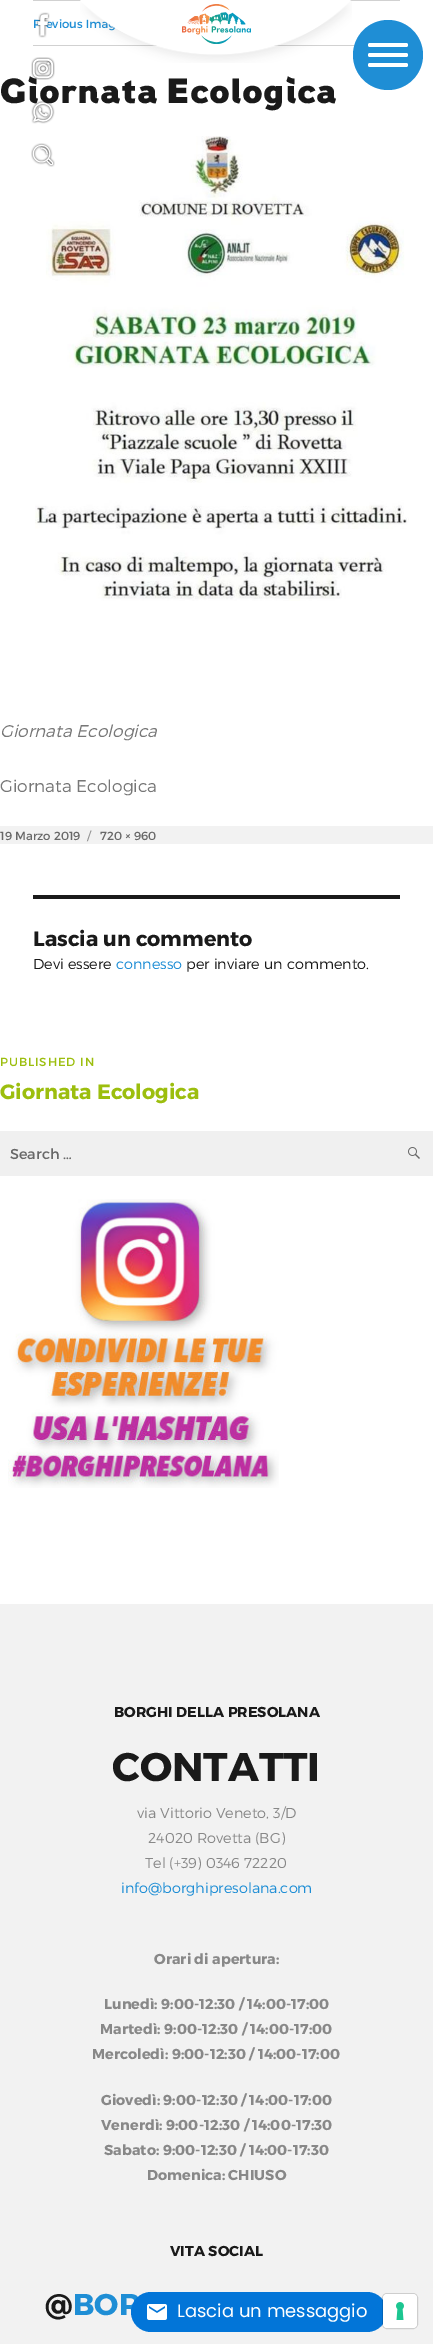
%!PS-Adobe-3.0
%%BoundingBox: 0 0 433 2344
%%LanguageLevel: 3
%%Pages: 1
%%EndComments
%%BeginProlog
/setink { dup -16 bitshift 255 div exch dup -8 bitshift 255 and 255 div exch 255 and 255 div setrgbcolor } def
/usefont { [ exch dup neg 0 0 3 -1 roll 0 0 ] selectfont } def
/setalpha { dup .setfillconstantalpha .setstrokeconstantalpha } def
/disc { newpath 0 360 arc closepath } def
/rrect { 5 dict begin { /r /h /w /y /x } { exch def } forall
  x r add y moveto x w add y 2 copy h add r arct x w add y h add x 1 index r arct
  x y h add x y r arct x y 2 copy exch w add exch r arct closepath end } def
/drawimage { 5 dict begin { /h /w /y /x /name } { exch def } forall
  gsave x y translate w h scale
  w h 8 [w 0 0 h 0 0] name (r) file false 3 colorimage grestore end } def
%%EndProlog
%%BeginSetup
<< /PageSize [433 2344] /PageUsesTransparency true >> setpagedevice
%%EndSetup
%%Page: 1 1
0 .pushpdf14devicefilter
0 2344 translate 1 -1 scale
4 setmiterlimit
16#FFFFFF setink
0 0 433 2344 rectfill
/Montserrat-Regular 11.75 usefont
16#1F8ED5 setink
33 28 moveto (Previous Imag) show
(img1.raw) 36 12 14 26 drawimage
(img2.raw) 31 57 24 23 drawimage
(img3.raw) 31 100 24 24 drawimage
(img7.raw) 35 136 374 465 drawimage
(img4.raw) 31 143 24 24 drawimage
16#D1D1D1 setink
33 0 367 1 rectfill
33 45 322 1 rectfill
(img5.raw) 80 0 272 63 drawimage
(img6.raw) 182 4 69 40 drawimage
16#1F8ED5 setink
388 55 35 disc fill
16#FFFFFF setink
368 53 40 4 2 rrect fill
368 43 40 4 2 rrect fill
368 63 40 4 2 rrect fill
/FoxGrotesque-Black 35 usefont
16#1A1A1A setink
0 103 moveto (Giornata Ecologica) show
/Montserrat-LightItalic 17 usefont
16#777777 setink
0 737 moveto (Giornata Ecologica) show
/Montserrat-Light 17 usefont
0 792 moveto (Giornata Ecologica) show
16#F2F2F2 setink
0 826 433 18 rectfill
/Montserrat-Regular 11.75 usefont
16#686868 setink
0 840 moveto (19 Marzo 2019) show
16#919191 setink
87 840 moveto (/) show
16#686868 setink
100 840 moveto (720 × 960) show
16#1A1A1A setink
33 895 367 4 rectfill
/Montserrat-Bold 20.75 usefont
33 946 moveto (Lascia un commento) show
/Montserrat-Light 14.4 usefont
33 969 moveto (Devi essere) show
16#1F8ED5 setink
116 969 moveto (connesso) show
16#1A1A1A setink
186 969 moveto (per inviare un commento.) show
/Montserrat-Regular 11.75 usefont
16#9CBE0E setink
0 1066 moveto 0.9 0 (PUBLISHED IN) ashow
/Montserrat-Bold 20.75 usefont
0 1099 moveto (Giornata Ecologica) show
16#F0F0F0 setink
0 1131 433 45 rectfill
/Montserrat-Regular 14.4 usefont
16#686868 setink
10 1159 moveto (Search …) show
(img8.raw) 408 1147 12 12 drawimage
(img9.raw) 8 1199 271 289 drawimage
16#F2F2F2 setink
0 1604 433 740 rectfill
/Montserrat-Bold 14.4 usefont
16#1A1A1A setink
114 1717 moveto (BORGHI DELLA PRESOLANA) show
/Montserrat-Bold 40 usefont
112 1781 moveto (CONTATTI) show
/Montserrat-Light 14.4 usefont
16#888888 setink
[
    [(via Vittorio Veneto, 3/D) 137 1818]
    [(24020 Rovetta \(BG\)) 148 1843]
    [(Tel \(+39\) 0346 72220) 145 1868]
] { aload pop moveto show } forall
16#1F8ED5 setink
121 1893 moveto (info@borghipresolana.com) show
/Montserrat-Bold 14.4 usefont
16#888888 setink
[
    [(Orari di apertura:) 154 1964]
    [(Lunedì: 9:00-12:30 / 14:00-17:00) 104 2009]
    [(Martedì: 9:00-12:30 / 14:00-17:00) 100 2034]
    [(Mercoledì: 9:00-12:30 / 14:00-17:00) 92 2059]
    [(Giovedì: 9:00-12:30 / 14:00-17:00) 101 2105]
    [(Venerdì: 9:00-12:30 / 14:00-17:30) 101 2130]
    [(Sabato: 9:00-12:30 / 14:00-17:30) 104 2155]
    [(Domenica: CHIUSO) 147 2180]
] { aload pop moveto show } forall
16#1A1A1A setink
170 2256 moveto (VITA SOCIAL) show
/Montserrat-Bold 30 usefont
45 2315 moveto (@) show
16#1F8ED5 setink
73 2315 moveto (BOR) show
16#0275D8 setink
131 2292 256 40 20 rrect fill
0.15 setalpha
16#000000 setink
382.5 2293.5 35 35 4.5 rrect stroke
1 setalpha
16#FFFFFF setink
383 2294 34 34 4 rrect fill
(img10.raw) 396 2302 8 18 drawimage
(img11.raw) 147 2304 20 16 drawimage
/Poppins-Regular 18 usefont
177 2317 moveto (Lascia un messaggio) show
.poppdf14devicefilter showpage
%%EOF
